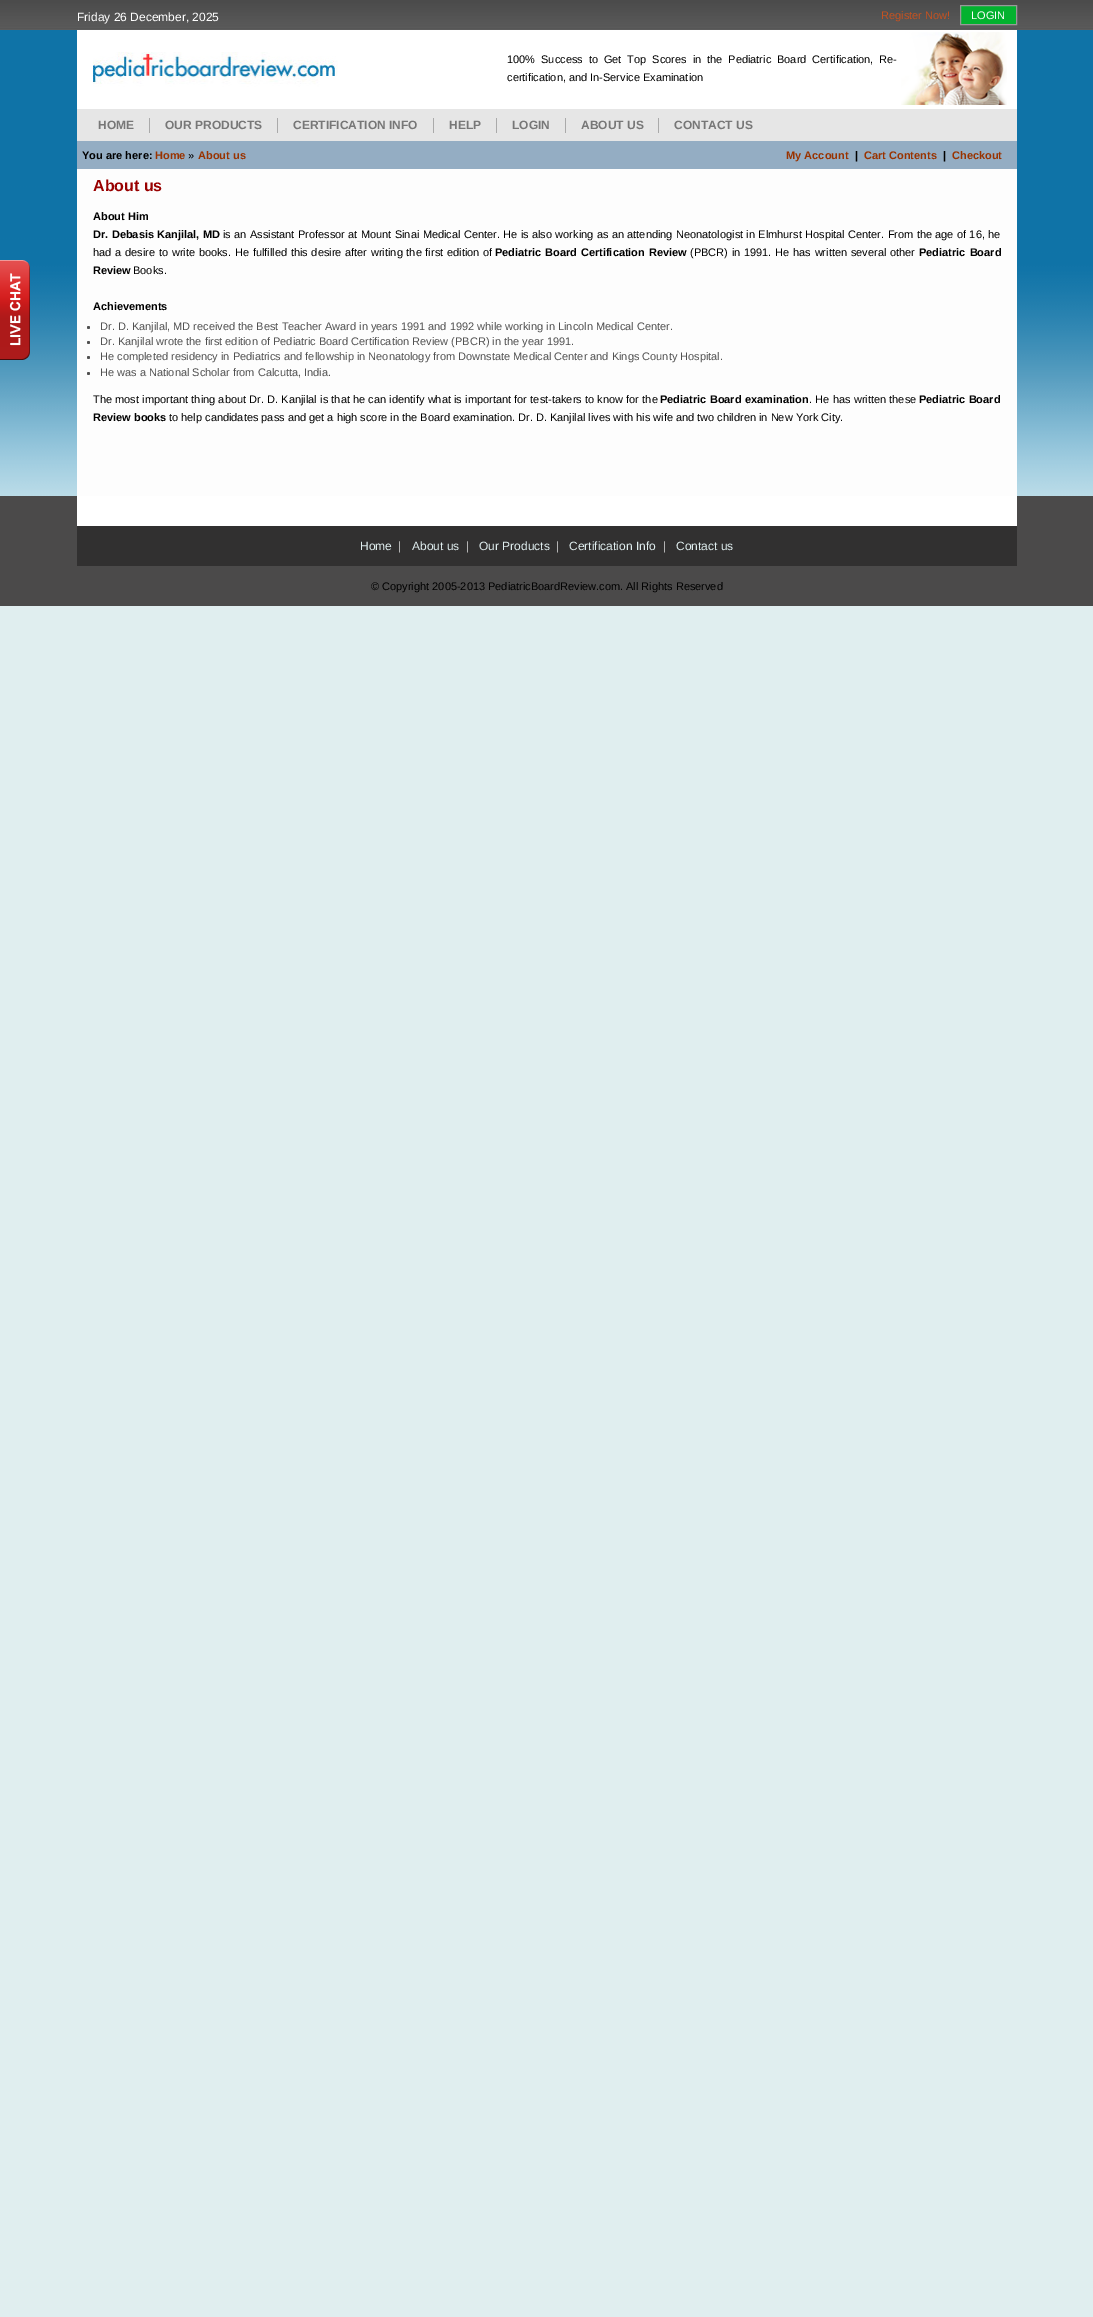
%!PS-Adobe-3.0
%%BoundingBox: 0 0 1093 2317
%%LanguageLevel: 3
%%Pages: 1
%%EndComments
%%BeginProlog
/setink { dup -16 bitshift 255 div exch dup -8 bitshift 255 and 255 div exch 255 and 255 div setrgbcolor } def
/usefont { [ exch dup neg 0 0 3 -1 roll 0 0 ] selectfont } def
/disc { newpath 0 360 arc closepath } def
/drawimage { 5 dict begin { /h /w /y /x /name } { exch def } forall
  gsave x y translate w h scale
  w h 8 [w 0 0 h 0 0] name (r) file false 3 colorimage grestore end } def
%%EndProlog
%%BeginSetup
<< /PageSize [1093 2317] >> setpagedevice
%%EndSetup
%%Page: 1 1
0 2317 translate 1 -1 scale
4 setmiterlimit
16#E0EEEF setink
0 0 1093 2317 rectfill
(img1.raw) 0 30 1093 466 drawimage
(img2.raw) 0 0 1093 30 drawimage
/LiberationSans-Regular 12 usefont
16#FFFFFF setink
77 21 moveto (Friday 26 December, 2025) show
/LiberationSans-Regular 11 usefont
16#C55221 setink
881 19 moveto (Register Now!) show
16#03B22F setink
960.5 5.5 moveto 1016.5 5.5 lineto 1016.5 24.5 lineto 960.5 24.5 lineto closepath gsave fill grestore
16#999999 setink
stroke
16#FFFFFF setink
971 19 moveto (LOGIN) show
77 30 940 79 rectfill
(img3.raw) 93 52 245 35 drawimage
(img4.raw) 901 32 106 73 drawimage
16#000000 setink
507 63 moveto 2.9 0 32 (100% Success to Get Top Scores in the Pediatric Board Certification, Re-) widthshow
507 81 moveto (certification, and In-Service Examination) show
16#E6E6E6 setink
77 109 940 32 rectfill
/LiberationSans-Bold 12 usefont
16#777777 setink
98 129 moveto (HOME) show
16#AAAAAA setink
149 118 1 15 rectfill
16#777777 setink
165 129 moveto (OUR PRODUCTS) show
16#AAAAAA setink
277 118 1 15 rectfill
16#777777 setink
293 129 moveto (CERTIFICATION INFO) show
16#AAAAAA setink
433 118 1 15 rectfill
16#777777 setink
449 129 moveto (HELP) show
16#AAAAAA setink
496 118 1 15 rectfill
16#777777 setink
512 129 moveto (LOGIN) show
16#AAAAAA setink
565 118 1 15 rectfill
16#777777 setink
581 129 moveto (ABOUT US) show
16#AAAAAA setink
658 118 1 15 rectfill
16#777777 setink
674 129 moveto (CONTACT US) show
16#94ADC3 setink
77 141 940 28 rectfill
/LiberationSans-Bold 11 usefont
16#000000 setink
82 159 moveto (You are here:) show
16#993300 setink
155 159 moveto (Home) show
/LiberationSans-Regular 11 usefont
16#000000 setink
188 159 moveto (») show
/LiberationSans-Bold 11 usefont
16#993300 setink
198 159 moveto (About us) show
786 159 moveto (My Account) show
16#000000 setink
855 159 moveto (|) show
16#993300 setink
864 159 moveto (Cart Contents) show
16#000000 setink
943 159 moveto (|) show
16#993300 setink
952 159 moveto (Checkout) show
(img5.raw) 0 260 30 100 drawimage
16#FDFDFD setink
77 169 940 327 rectfill
/LiberationSans-Bold 16 usefont
16#990000 setink
93 191 moveto (About us) show
/LiberationSans-Bold 11 usefont
16#000000 setink
93 220 moveto (About Him) show
93 238 moveto 0.3 0 32 (Dr. Debasis Kanjilal, MD) widthshow
/LiberationSans-Regular 11 usefont
223 238 moveto 0.3 0 32 (is an Assistant Professor at Mount Sinai Medical Center. He is also working as an attending Neonatologist in Elmhurst Hospital Center. From the age of 16, he) widthshow
93 256 moveto 0.7 0 32 (had a desire to write books. He fulfilled this desire after writing the first edition of) widthshow
/LiberationSans-Bold 11 usefont
495 256 moveto 0.7 0 32 (Pediatric Board Certification Review) widthshow
/LiberationSans-Regular 11 usefont
690 256 moveto 0.7 0 32 (\(PBCR\) in 1991. He has written several other) widthshow
/LiberationSans-Bold 11 usefont
919 256 moveto 1 0 32 (Pediatric Board) widthshow
93 274 moveto (Review) show
/LiberationSans-Regular 11 usefont
133 274 moveto (Books.) show
/LiberationSans-Bold 11 usefont
93 310 moveto (Achievements) show
16#515151 setink
88.5 327.5 1.5 disc fill
/LiberationSans-Regular 11 usefont
100 330 moveto (Dr. D. Kanjilal, MD received the Best Teacher Award in years 1991 and 1992 while working in Lincoln Medical Center.) show
88.5 342.5 1.5 disc fill
100 345 moveto (Dr. Kanjilal wrote the first edition of Pediatric Board Certification Review \(PBCR\) in the year 1991.) show
88.5 357.5 1.5 disc fill
100 360 moveto (He completed residency in Pediatrics and fellowship in Neonatology from Downstate Medical Center and Kings County Hospital.) show
88.5 373.5 1.5 disc fill
100 376 moveto (He was a National Scholar from Calcutta, India.) show
16#000000 setink
93 403 moveto 0.2 0 32 (The most important thing about Dr. D. Kanjilal is that he can identify what is important for test-takers to know for the) widthshow
/LiberationSans-Bold 11 usefont
660 403 moveto 0.2 0 32 (Pediatric Board examination) widthshow
/LiberationSans-Regular 11 usefont
809 403 moveto 0.2 0 32 (. He has written these) widthshow
/LiberationSans-Bold 11 usefont
919 403 moveto (Pediatric Board) show
93 421 moveto (Review books) show
/LiberationSans-Regular 11 usefont
169 421 moveto (to help candidates pass and get a high score in the Board examination. Dr. D. Kanjilal lives with his wife and two children in New York City.) show
[
    [0 496 1093 110 16#4B4A4A]
    [77 496 940 30 16#FFFFFF]
    [77 526 940 40 16#313030]
] { aload pop setink rectfill } forall
/LiberationSans-Regular 12 usefont
16#E0EEEF setink
360 550 moveto (Home) show
16#B3B3B3 setink
398 550 moveto (|) show
16#E0EEEF setink
412 550 moveto (About us) show
16#B3B3B3 setink
466 550 moveto (|) show
16#E0EEEF setink
479 550 moveto (Our Products) show
16#B3B3B3 setink
556 550 moveto (|) show
16#E0EEEF setink
569 550 moveto (Certification Info) show
16#B3B3B3 setink
663 550 moveto (|) show
16#E0EEEF setink
676 550 moveto (Contact us) show
/LiberationSans-Regular 11 usefont
16#000000 setink
371 590 moveto (© Copyright 2005-2013 PediatricBoardReview.com. All Rights Reserved) show
showpage
%%EOF
